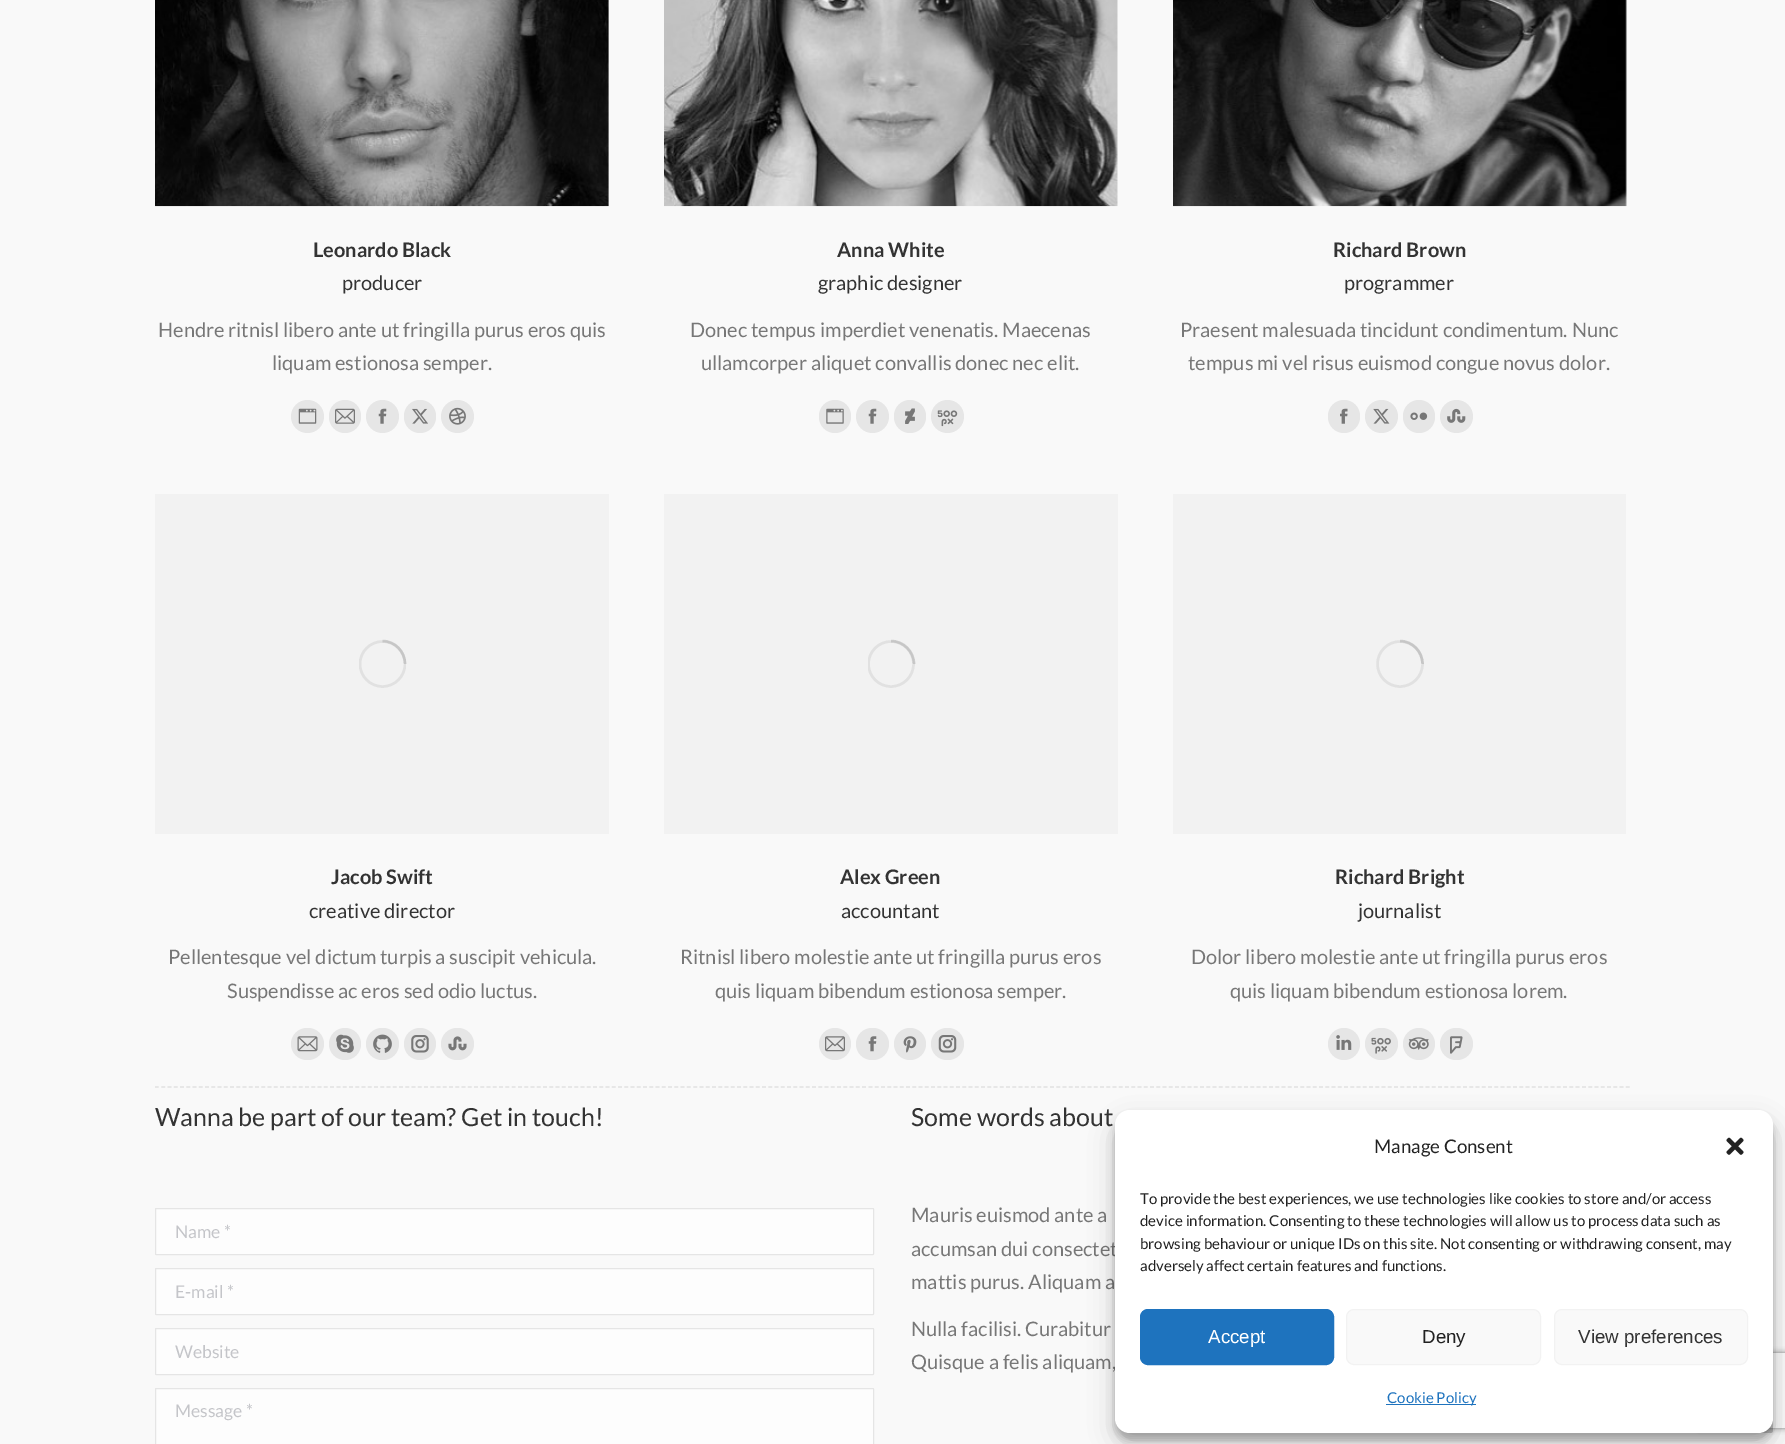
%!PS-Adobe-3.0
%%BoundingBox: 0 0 1785 1444
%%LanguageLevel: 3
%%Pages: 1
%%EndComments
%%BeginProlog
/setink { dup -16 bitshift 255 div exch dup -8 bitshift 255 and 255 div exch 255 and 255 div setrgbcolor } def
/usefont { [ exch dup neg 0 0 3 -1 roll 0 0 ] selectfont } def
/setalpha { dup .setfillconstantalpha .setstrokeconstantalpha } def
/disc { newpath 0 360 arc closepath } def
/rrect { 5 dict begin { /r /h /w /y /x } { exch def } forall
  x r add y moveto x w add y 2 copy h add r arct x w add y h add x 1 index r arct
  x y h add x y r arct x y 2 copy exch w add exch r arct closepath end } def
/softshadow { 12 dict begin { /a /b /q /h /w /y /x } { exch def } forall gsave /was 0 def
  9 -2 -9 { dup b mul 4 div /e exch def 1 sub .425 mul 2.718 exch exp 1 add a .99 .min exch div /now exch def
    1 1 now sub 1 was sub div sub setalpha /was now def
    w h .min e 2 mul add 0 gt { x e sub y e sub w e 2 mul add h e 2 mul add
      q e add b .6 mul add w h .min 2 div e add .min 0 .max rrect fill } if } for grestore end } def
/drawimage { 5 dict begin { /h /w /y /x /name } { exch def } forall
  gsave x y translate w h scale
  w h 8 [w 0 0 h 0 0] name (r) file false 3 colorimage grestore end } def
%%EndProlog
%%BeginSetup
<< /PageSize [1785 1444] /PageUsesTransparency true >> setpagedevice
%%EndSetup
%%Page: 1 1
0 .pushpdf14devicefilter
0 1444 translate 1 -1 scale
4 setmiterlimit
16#F9F9F9 setink
0 0 1785 1444 rectfill
(img1.raw) 155 0 454 207 drawimage
/Lato-Bold 20 usefont
16#333333 setink
313 257 moveto (Leonardo Black) show
/Lato-Regular 20 usefont
342 290 moveto (producer) show
16#777777 setink
158 337 moveto (Hendre ritnisl libero ante ut fringilla purus eros quis) show
272 370 moveto (liquam estionosa semper.) show
16#E6E6E6 setink
307.5 416.5 16.5 disc fill
(img2.raw) 298 408 19 16 drawimage
329 400 32 33 16 rrect fill
(img3.raw) 335 408 20 16 drawimage
382.5 416.5 16.5 disc fill
(img4.raw) 378 408 9 16 drawimage
404 400 32 33 16 rrect fill
(img5.raw) 412 408 16 16 drawimage
457.5 416.5 16.5 disc fill
(img6.raw) 449 407 17 18 drawimage
(img7.raw) 664 0 454 207 drawimage
/Lato-Bold 20 usefont
16#333333 setink
837 257 moveto (Anna White) show
/Lato-Regular 20 usefont
818 290 moveto (graphic designer) show
16#777777 setink
690 337 moveto (Donec tempus imperdiet venenatis. Maecenas) show
701 370 moveto (ullamcorper aliquet convallis donec nec elit.) show
16#E6E6E6 setink
819 400 32 33 16 rrect fill
(img8.raw) 826 408 18 16 drawimage
872.5 416.5 16.5 disc fill
(img4.raw) 868 408 9 16 drawimage
894 400 32 33 16 rrect fill
(img9.raw) 905 408 10 16 drawimage
947.5 416.5 16.5 disc fill
(img10.raw) 937 410 21 17 drawimage
(img11.raw) 1173 0 454 207 drawimage
/Lato-Bold 20 usefont
16#333333 setink
1333 257 moveto (Richard Brown) show
/Lato-Regular 20 usefont
1344 290 moveto (programmer) show
16#777777 setink
1180 337 moveto (Praesent malesuada tincidunt condimentum. Nunc) show
1188 370 moveto (tempus mi vel risus euismod congue novus dolor.) show
16#E6E6E6 setink
1328 400 32 33 16 rrect fill
(img12.raw) 1340 408 8 16 drawimage
1381.5 416.5 16.5 disc fill
(img13.raw) 1373 408 17 16 drawimage
1403 400 32 33 16 rrect fill
(img14.raw) 1410 412 18 8 drawimage
1456.5 416.5 16.5 disc fill
(img15.raw) 1447 408 19 15 drawimage
16#F2F2F2 setink
155 494 454 340 rectfill
gsave
359 640 47 48 rectclip
16#E1E1E1 setink
2.5 setlinewidth
382.5 664 22.5 disc stroke
grestore
0.25 setalpha
16#777777 setink
2.5 setlinewidth
405 664 moveto 405 651.5 395 641 382.5 641 curveto stroke
/Lato-Bold 20 usefont
1 setalpha
16#333333 setink
331 884 moveto (Jacob Swift) show
/Lato-Regular 20 usefont
309 918 moveto (creative director) show
16#777777 setink
168 964 moveto (Pellentesque vel dictum turpis a suscipit vehicula.) show
227 998 moveto (Suspendisse ac eros sed odio luctus.) show
16#E6E6E6 setink
291 1028 33 32 16 rrect fill
(img16.raw) 297 1036 21 16 drawimage
345 1044 16 disc fill
(img17.raw) 336 1034 18 19 drawimage
366 1028 33 32 16 rrect fill
(img18.raw) 373 1034 19 19 drawimage
420 1044 16 disc fill
(img19.raw) 411 1035 18 18 drawimage
441 1028 33 32 16 rrect fill
(img20.raw) 448 1036 19 15 drawimage
16#F2F2F2 setink
664 494 454 340 rectfill
gsave
868 640 47 48 rectclip
16#E1E1E1 setink
891 664 22.5 disc stroke
grestore
0.25 setalpha
16#777777 setink
914 664 moveto 914 651.5 903.5 641 891 641 curveto stroke
/Lato-Bold 20 usefont
1 setalpha
16#333333 setink
840 884 moveto (Alex Green) show
/Lato-Regular 20 usefont
841 918 moveto (accountant) show
16#777777 setink
680 964 moveto (Ritnisl libero molestie ante ut fringilla purus eros) show
715 998 moveto (quis liquam bibendum estionosa semper.) show
16#E6E6E6 setink
835 1044 16 disc fill
(img21.raw) 825 1036 20 16 drawimage
856 1028 33 32 16 rrect fill
(img22.raw) 868 1036 9 16 drawimage
910 1044 16 disc fill
(img23.raw) 903 1036 14 17 drawimage
931 1028 33 32 16 rrect fill
(img24.raw) 938 1035 19 18 drawimage
16#F2F2F2 setink
1173 494 453 340 rectfill
16#E1E1E1 setink
1400 664 22.5 disc stroke
0.25 setalpha
16#777777 setink
1422.5 664 moveto 1422.5 651.5 1412.5 641 1400 641 curveto stroke
/Lato-Bold 20 usefont
1 setalpha
16#333333 setink
1335 884 moveto (Richard Bright) show
/Lato-Regular 20 usefont
1358 918 moveto (journalist) show
16#777777 setink
1191 964 moveto (Dolor libero molestie ante ut fringilla purus eros) show
1230 998 moveto (quis liquam bibendum estionosa lorem.) show
16#E6E6E6 setink
1344 1044 16 disc fill
(img25.raw) 1336 1035 16 15 drawimage
1365 1028 33 32 16 rrect fill
(img26.raw) 1371 1037 20 17 drawimage
1419 1044 16 disc fill
(img27.raw) 1408 1037 21 13 drawimage
1440 1028 33 32 16 rrect fill
(img28.raw) 1450 1036 13 18 drawimage
16#E1E1E1 setink
1.2 setlinewidth
[3.75 2.51] 0 setdash
155 1087 moveto 1630 1087 lineto stroke
/Lato-Regular 25 usefont
16#333333 setink
155 1126 moveto (Wanna be part of our team? Get in touch!) show
16#FDFDFD setink
155.5 1208.5 718 46 0.5 rrect gsave fill grestore
16#E5E5E5 setink
1 setlinewidth
[] 0 setdash
stroke
/Lato-Regular 17.5 usefont
16#C4C5C9 setink
175 1238 moveto (Name *) show
16#FDFDFD setink
155.5 1268.5 718 46 0.5 rrect gsave fill grestore
16#E5E5E5 setink
stroke
16#C4C5C9 setink
175 1298 moveto (E-mail *) show
16#FDFDFD setink
155.5 1328.5 718 46 0.5 rrect gsave fill grestore
16#E5E5E5 setink
stroke
16#C4C5C9 setink
175 1358 moveto (Website) show
16#FDFDFD setink
155.5 1388.5 718 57 0.5 rrect gsave fill grestore
16#E5E5E5 setink
stroke
16#C4C5C9 setink
175 1417 moveto (Message *) show
/Lato-Regular 25 usefont
16#333333 setink
911 1126 moveto (Some words about) show
/Lato-Regular 20 usefont
16#777777 setink
[
    [(Mauris euismod ante a) 911 1222]
    [(accumsan dui consectet) 911 1256]
    [(mattis purus. Aliquam a) 911 1289]
    [(Nulla facilisi. Curabitur) 911 1336]
    [(Quisque a felis aliquam,) 911 1369]
] { aload pop moveto show } forall
gsave
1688 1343 moveto 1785 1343 lineto 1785 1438 lineto 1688 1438 lineto closepath 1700.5 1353 moveto 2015.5 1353 lineto 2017 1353 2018 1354 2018 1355.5 curveto 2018 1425.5 lineto 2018 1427 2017 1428 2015.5 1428 curveto 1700.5 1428 lineto 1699 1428 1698 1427 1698 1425.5 curveto 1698 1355.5 lineto 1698 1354 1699 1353 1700.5 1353 curveto closepath eoclip newpath
16#808080 setink
1698 1353 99 75 2.5 3 1 softshadow
grestore
0.2 setalpha
16#000000 setink
1723 1383 50 50 2.5 rrect fill
1 setalpha
1115 1118 658 322 15 4 0.23 softshadow
1115 1123 658 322 15 12.5 0.19 softshadow
16#FFFFFF setink
1115 1110 658 323 15 rrect fill
/Lato-Regular 18.75 usefont
16#222222 setink
1374 1153 moveto (Manage Consent) show
(img29.raw) 1726 1137 18 18 drawimage
/Lato-Regular 15 usefont
[
    [(To provide the best experiences, we use technologies like cookies to store and/or access) 1140 1204]
    [(device information. Consenting to these technologies will allow us to process data such as) 1140 1226]
    [(browsing behaviour or unique IDs on this site. Not consenting or withdrawing consent, may) 1140 1249]
    [(adversely affect certain features and functions.) 1140 1271]
] { aload pop moveto show } forall
16#1E73BE setink
1140.5 1309.5 193 55 7.5 rrect gsave fill grestore
stroke
/LiberationSans-Regular 18.75 usefont
16#FFFFFF setink
1208 1343 moveto (Accept) show
16#F9F9F9 setink
1346.5 1309.5 194 55 7.5 rrect gsave fill grestore
16#F2F2F2 setink
stroke
16#222222 setink
1422 1343 moveto (Deny) show
16#F9F9F9 setink
1554.5 1309.5 193 55 7.5 rrect gsave fill grestore
16#F2F2F2 setink
stroke
16#333333 setink
1578 1343 moveto (View preferences) show
16#1E73BE setink
1386 1404 90 1 rectfill
/Lato-Regular 15 usefont
1387 1403 moveto (Cookie Policy) show
.poppdf14devicefilter showpage
%%EOF
